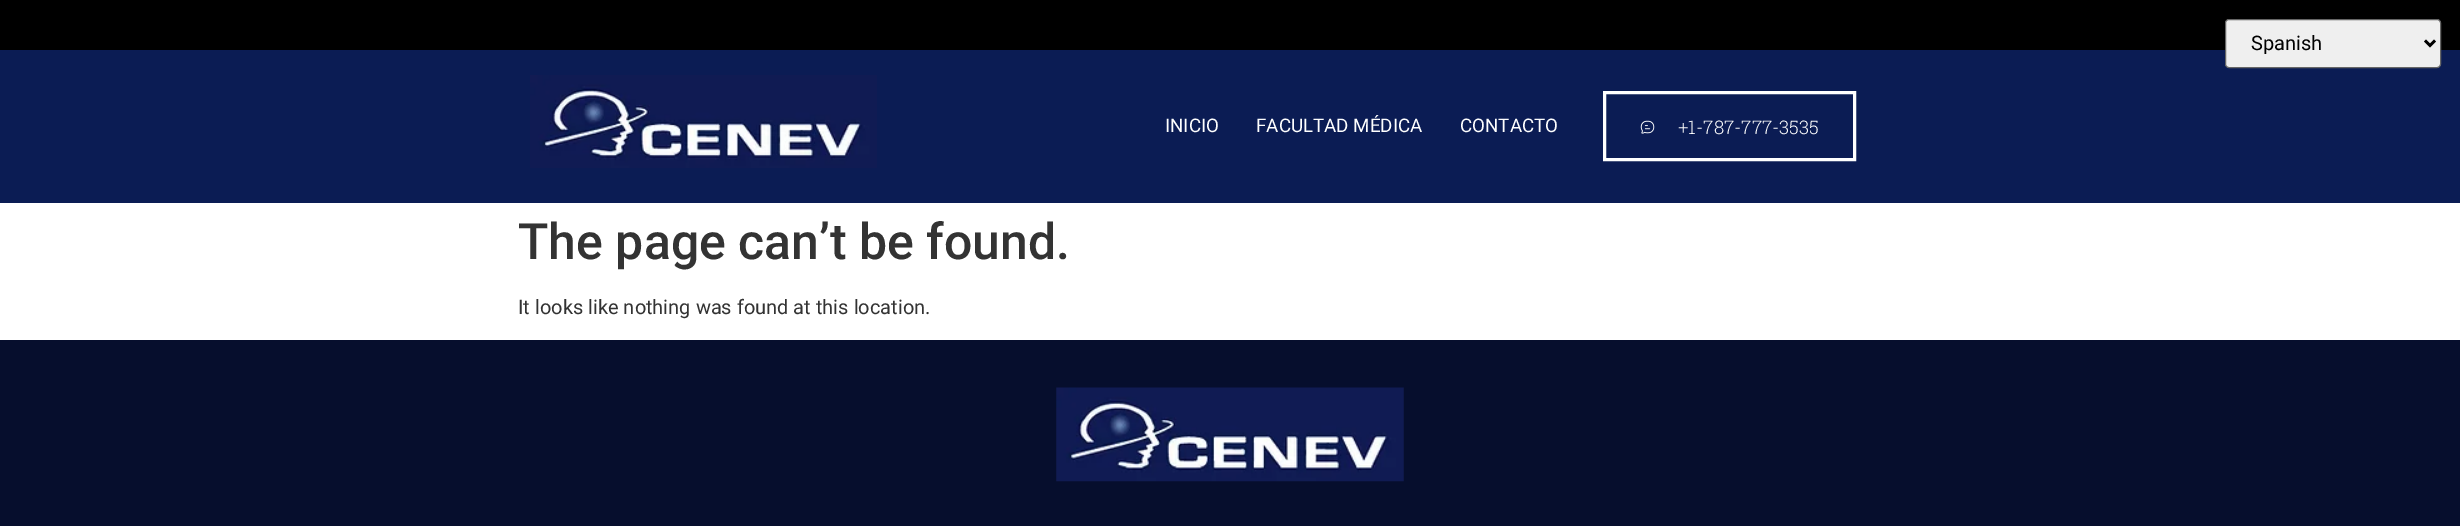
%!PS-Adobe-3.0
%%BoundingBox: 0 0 2460 526
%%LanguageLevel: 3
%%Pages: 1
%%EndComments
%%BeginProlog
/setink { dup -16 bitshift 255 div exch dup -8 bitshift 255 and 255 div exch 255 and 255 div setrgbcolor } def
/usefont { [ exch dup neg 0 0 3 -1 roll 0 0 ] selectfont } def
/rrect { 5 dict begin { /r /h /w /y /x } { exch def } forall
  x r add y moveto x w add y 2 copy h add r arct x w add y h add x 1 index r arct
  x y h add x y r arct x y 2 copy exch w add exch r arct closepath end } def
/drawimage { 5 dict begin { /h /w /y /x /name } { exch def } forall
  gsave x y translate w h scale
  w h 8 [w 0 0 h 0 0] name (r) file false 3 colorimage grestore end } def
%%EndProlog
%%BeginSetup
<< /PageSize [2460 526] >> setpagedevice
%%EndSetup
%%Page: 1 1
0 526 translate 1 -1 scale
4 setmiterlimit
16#FFFFFF setink
0 0 2460 526 rectfill
16#000000 setink
0 0 2460 50 rectfill
16#0B1C54 setink
0 50 2460 153 rectfill
16#EFEFEF setink
2225.5 19.5 215 48 3.5 rrect gsave fill grestore
16#666666 setink
stroke
16#000000 setink
2.5 setlinewidth
2425 40.5 moveto 2430 45.5 lineto 2435 40.5 lineto stroke
/Roboto-Regular 20 usefont
2251 50 moveto (Spanish) show
(img1.raw) 530 75 347 93 drawimage
/Roboto-Regular 18.75 usefont
16#FFFFFF setink
[
    [(INICIO) 1165 132]
    [(FACULTAD MÉDICA) 1256 132]
    [(CONTACTO) 1460 132]
] { aload pop moveto show } forall
3 setlinewidth
1604.5 92.5 250 67 rectstroke
(img2.raw) 1640 120 15 14 drawimage
/RobotoSlab-Light 18.75 usefont
1678 134 moveto (+1-787-777-3535) show
/Roboto-Medium 50 usefont
16#333333 setink
518 259 moveto (The page can’t be found.) show
/Roboto-Regular 20 usefont
518 314 moveto (It looks like nothing was found at this location.) show
16#060E2D setink
0 340 2460 186 rectfill
(img3.raw) 1056 387 348 95 drawimage
showpage
%%EOF
